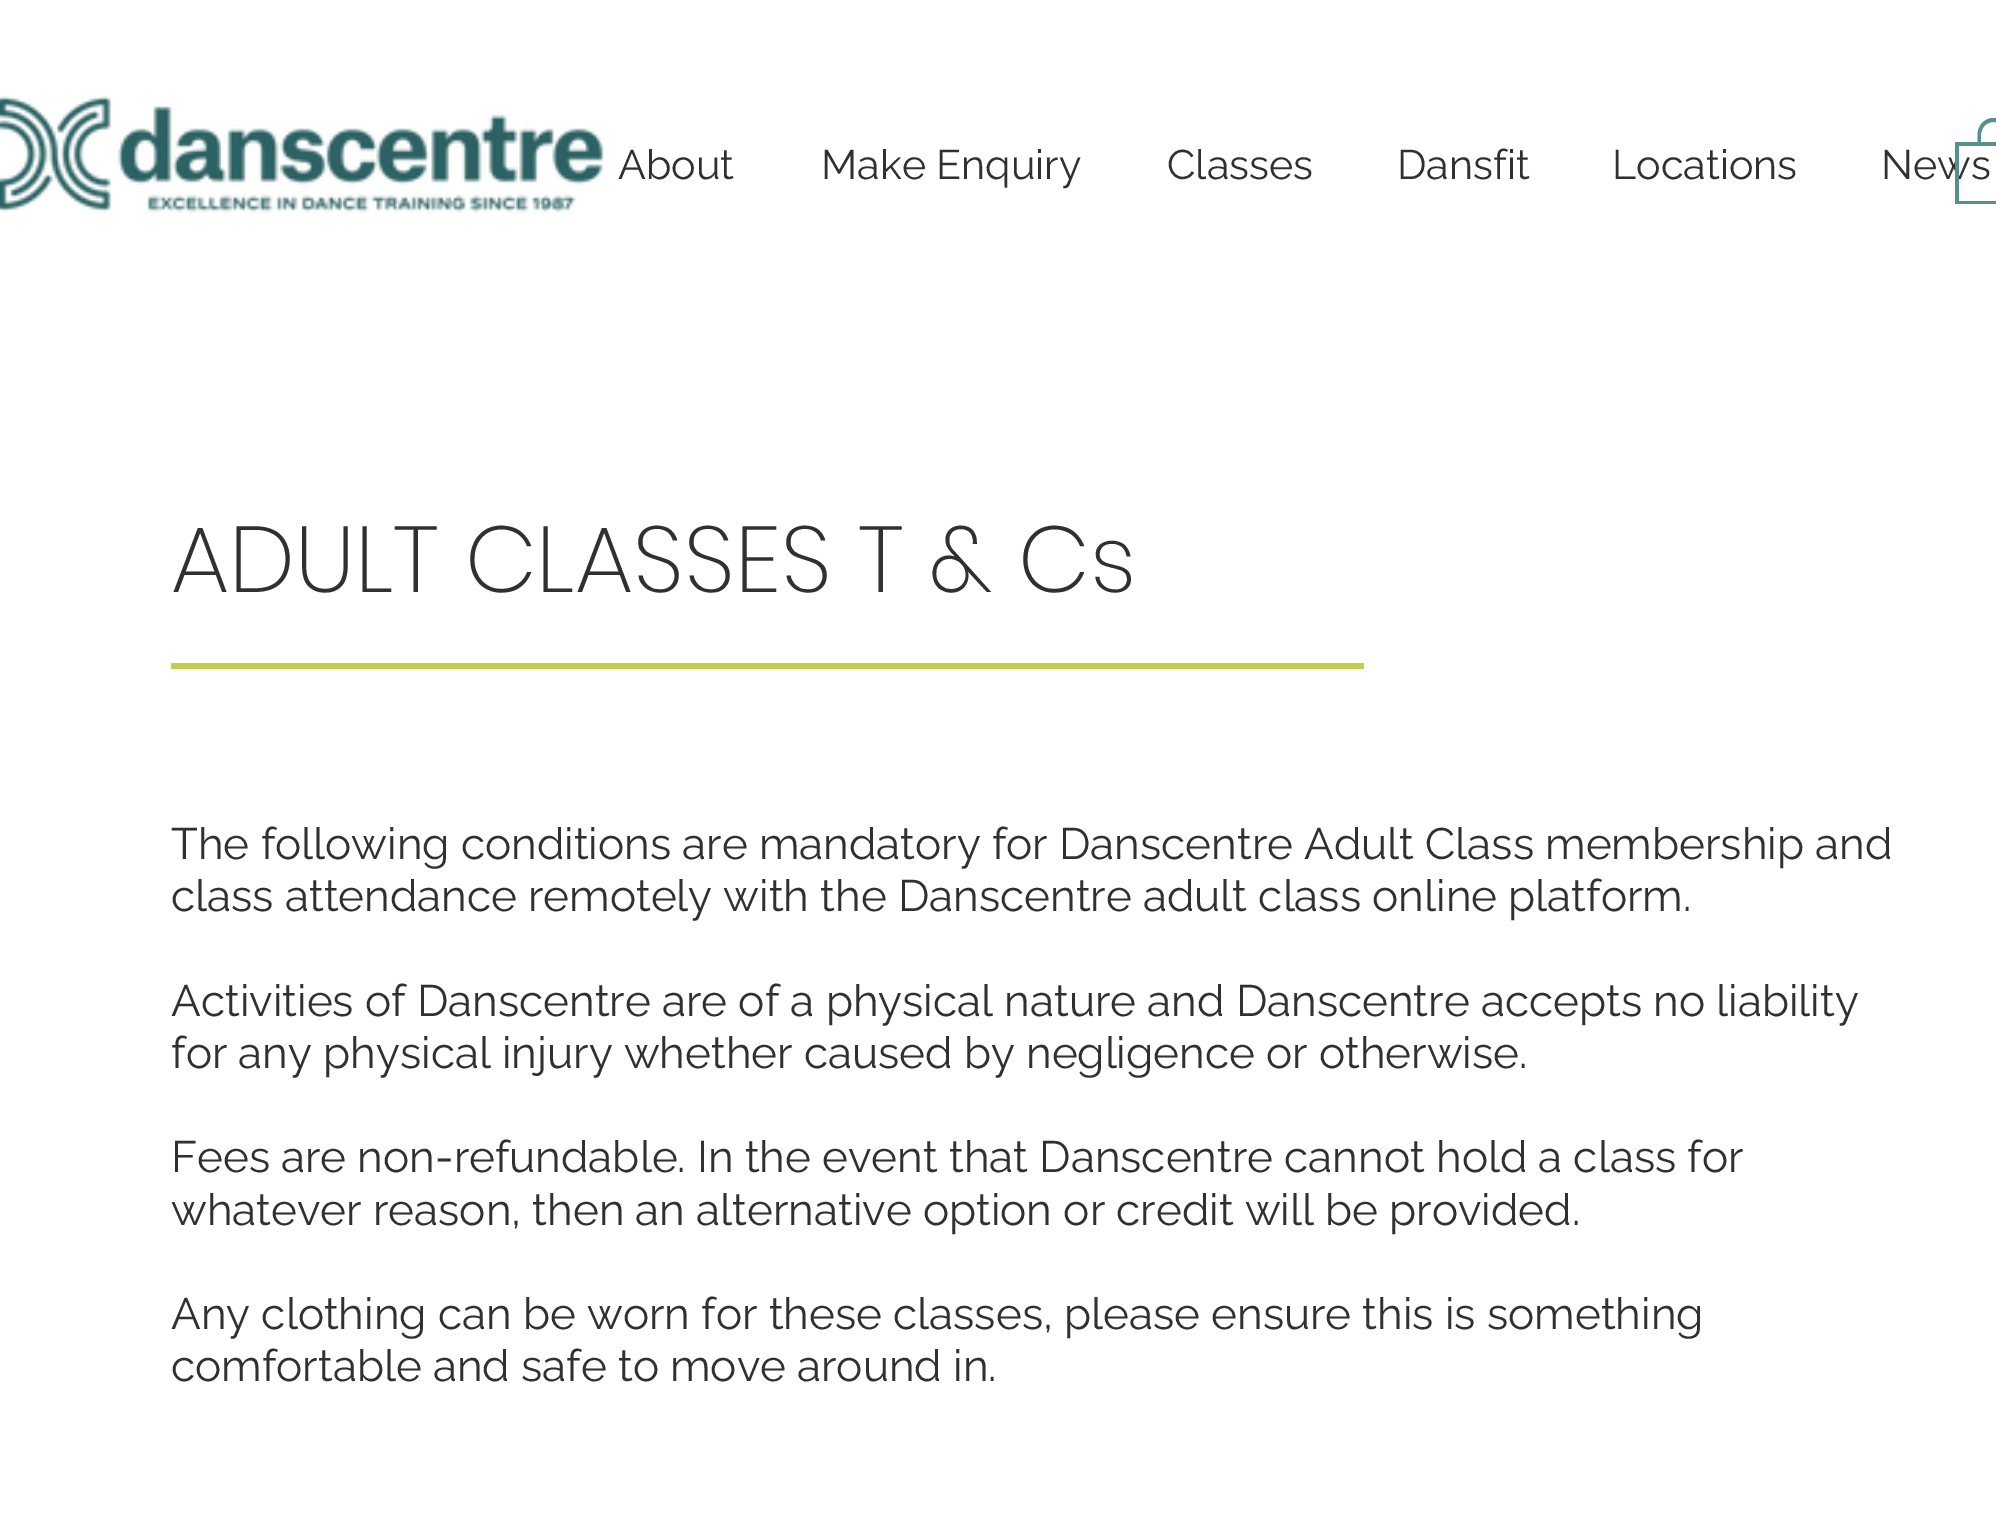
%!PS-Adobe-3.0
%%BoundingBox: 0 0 1996 1524
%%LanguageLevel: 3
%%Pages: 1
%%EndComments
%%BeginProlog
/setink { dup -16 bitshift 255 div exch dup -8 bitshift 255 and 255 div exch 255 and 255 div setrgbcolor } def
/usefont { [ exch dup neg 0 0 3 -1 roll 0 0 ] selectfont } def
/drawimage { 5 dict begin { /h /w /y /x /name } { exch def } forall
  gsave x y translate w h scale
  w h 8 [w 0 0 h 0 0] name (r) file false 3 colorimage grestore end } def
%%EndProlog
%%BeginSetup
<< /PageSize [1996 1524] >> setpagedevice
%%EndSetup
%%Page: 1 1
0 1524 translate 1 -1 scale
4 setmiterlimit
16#FFFFFF setink
0 0 1996 1524 rectfill
(img1.raw) 0 95 604 118 drawimage
16#548F91 setink
1993.5 118 moveto 1984.5 118 1977.5 125.5 1977.5 135 curveto 1977.5 143 lineto 1981 143 lineto 1981 135 lineto 1981 127.5 1986.5 122 1993.5 122 curveto 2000.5 122 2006 127.5 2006 135 curveto 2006 143 lineto 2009 143 lineto 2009 142.5 lineto 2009.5 142.5 lineto 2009.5 135 lineto 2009.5 125.5 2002.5 118 1993.5 118 curveto closepath fill
/Raleway-Regular 41.25 usefont
16#303030 setink
1881 179 moveto (News) show
16#548F91 setink
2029 146 moveto 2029 201 lineto 1959 201 lineto 1959 146 lineto 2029 146 lineto 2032 142 moveto 1955 142 lineto 1955 204 lineto 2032 204 lineto closepath fill
16#303030 setink
[
    [(About) 618 179]
    [(Make Enquiry) 821 179]
    [(Classes) 1167 179]
    [(Dansfit) 1397 179]
    [(Locations) 1612 179]
] { aload pop moveto show } forall
/Poppins-ExtraLight 93.5 usefont
171 592 moveto (ADULT CLASSES T & Cs) show
16#C6CE4B setink
171 663 1193 6 rectfill
/Raleway-Regular 44 usefont
16#303030 setink
[
    [(The following conditions are mandatory for Danscentre Adult Class membership and) 171 859]
    [(class attendance remotely with the Danscentre adult class online platform.) 171 911]
    [(Activities of Danscentre are of a physical nature and Danscentre accepts no liability) 171 1016]
    [(for any physical injury whether caused by negligence or otherwise.) 171 1068]
    [(Fees are non-refundable. In the event that Danscentre cannot hold a class for) 171 1172]
    [(whatever reason, then an alternative option or credit will be provided.) 171 1225]
    [(Any clothing can be worn for these classes, please ensure this is something) 171 1329]
    [(comfortable and safe to move around in.) 171 1381]
] { aload pop moveto show } forall
showpage
%%EOF
